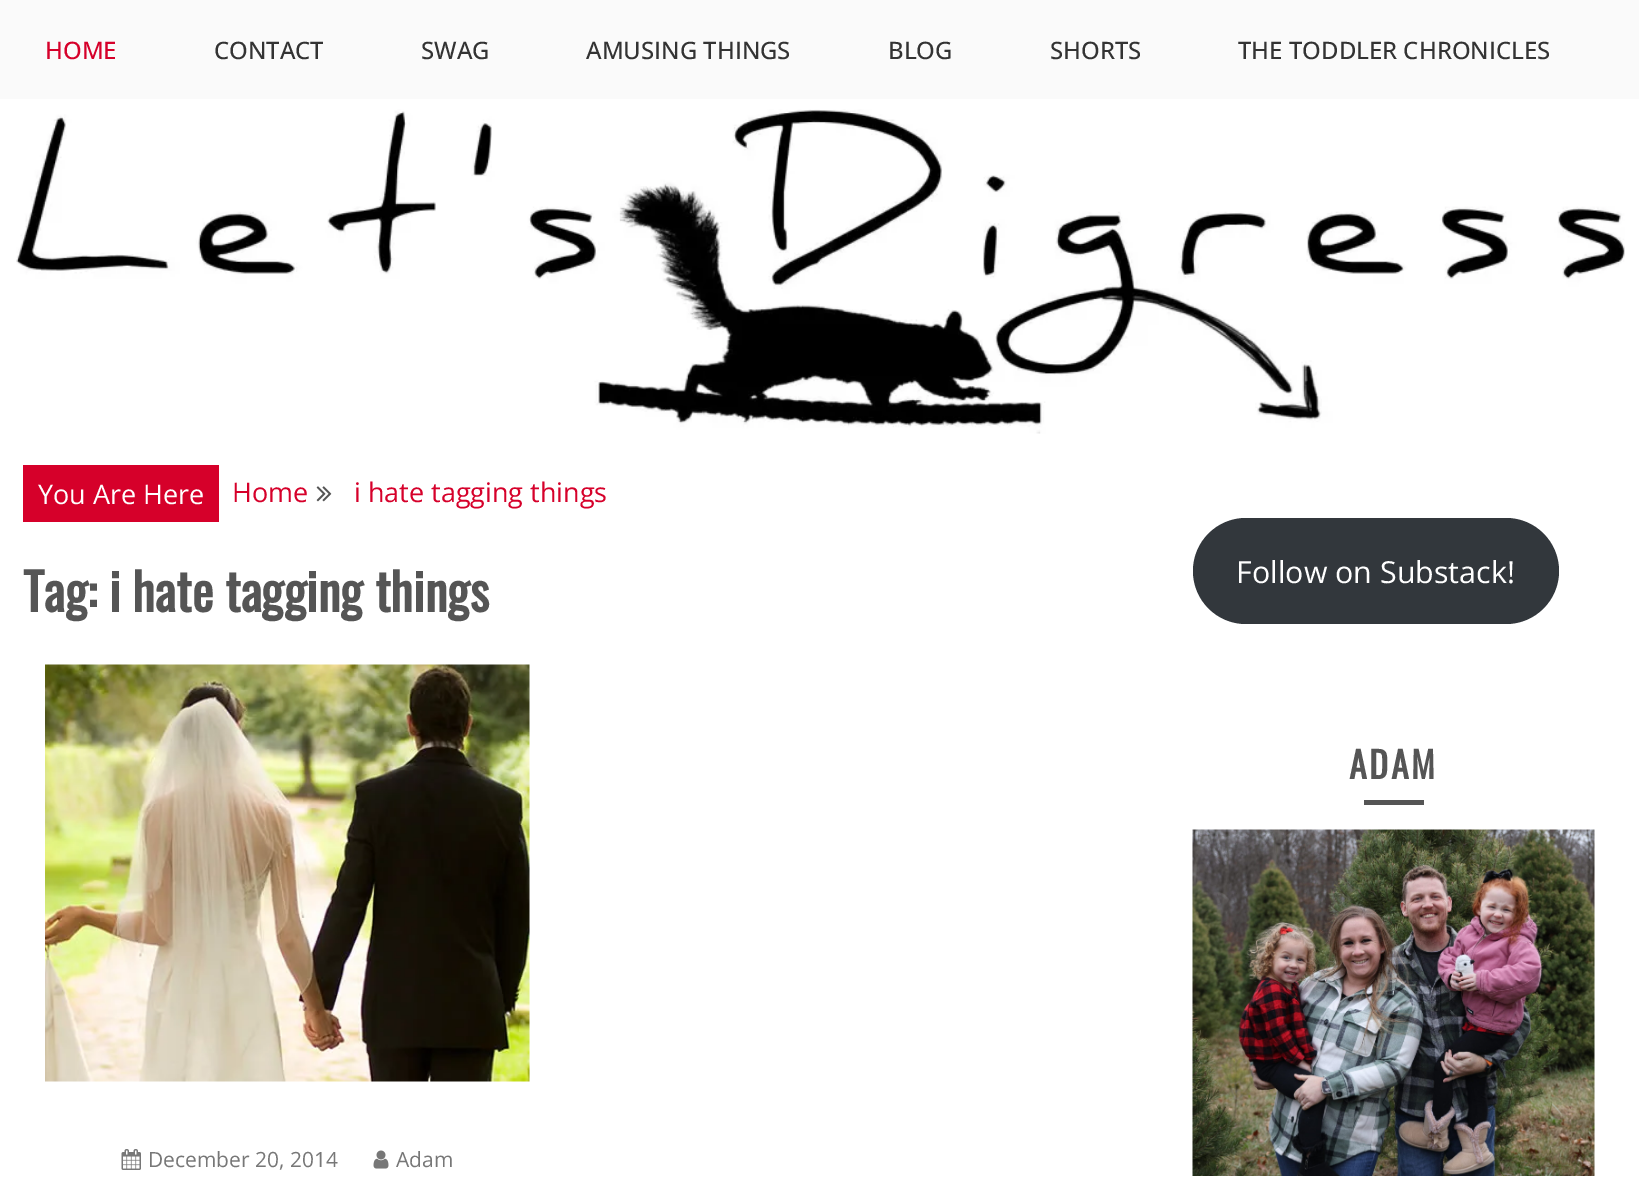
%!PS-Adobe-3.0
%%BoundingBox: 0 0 1639 1188
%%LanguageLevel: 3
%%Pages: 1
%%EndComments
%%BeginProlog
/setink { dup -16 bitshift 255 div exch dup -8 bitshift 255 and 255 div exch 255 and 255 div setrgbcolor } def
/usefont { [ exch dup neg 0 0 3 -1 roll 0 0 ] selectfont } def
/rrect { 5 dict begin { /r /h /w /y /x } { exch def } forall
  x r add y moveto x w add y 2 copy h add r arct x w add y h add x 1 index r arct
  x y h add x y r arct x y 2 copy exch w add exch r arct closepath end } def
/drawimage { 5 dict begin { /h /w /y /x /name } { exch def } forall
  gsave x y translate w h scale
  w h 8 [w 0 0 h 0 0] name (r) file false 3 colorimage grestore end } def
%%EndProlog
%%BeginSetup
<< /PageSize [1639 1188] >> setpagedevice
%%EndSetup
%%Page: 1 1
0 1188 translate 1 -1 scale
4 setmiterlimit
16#FFFFFF setink
0 0 1639 1188 rectfill
16#FAFAFA setink
0 0 1639 99 rectfill
/OpenSans-Medium 24 usefont
16#D6002A setink
45 59 moveto (HOME) show
16#333333 setink
[
    [(CONTACT) 214 59]
    [(SWAG) 421 59]
    [(AMUSING THINGS) 586 59]
    [(BLOG) 888 59]
    [(SHORTS) 1050 59]
    [(THE TODDLER CHRONICLES) 1238 59]
] { aload pop moveto show } forall
(img1.raw) 16 109 1609 325 drawimage
16#D6002A setink
23 465 196 57 rectfill
/OpenSans-Regular 27 usefont
16#FFFFFF setink
38 504 moveto (You Are Here) show
16#D6002A setink
232 502 moveto (Home) show
(img2.raw) 316 486 16 16 drawimage
354 502 moveto (i hate tagging things) show
/Oswald-Bold 51 usefont
16#555555 setink
23 612 moveto (Tag: i hate tagging things) show
(img3.raw) 45 664 485 418 drawimage
(img4.raw) 121 1149 20 21 drawimage
/OpenSans-Regular 21 usefont
16#777777 setink
148 1167 moveto (December 20, 2014) show
(img5.raw) 373 1150 16 19 drawimage
396 1167 moveto (Adam) show
16#32373C setink
1193 518 366 106 53 rrect fill
/OpenSans-Regular 30.4 usefont
16#FFFFFF setink
1236 583 moveto (Follow on Substack!) show
/Oswald-Bold 36 usefont
16#555555 setink
1349 779 moveto 2.5 0 (ADAM) ashow
1364 800 60 5 rectfill
(img6.raw) 1192 829 403 347 drawimage
showpage
%%EOF
